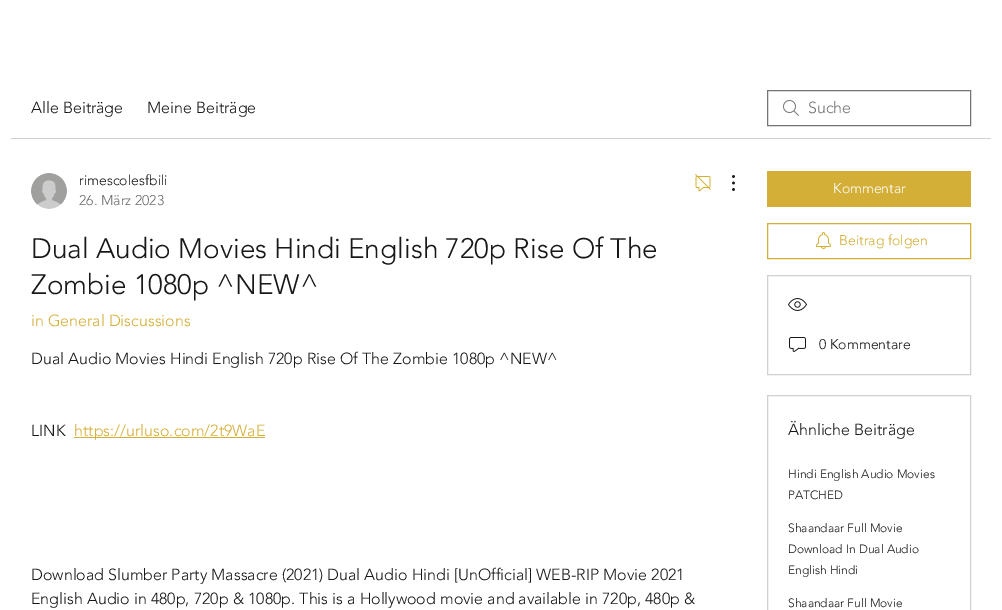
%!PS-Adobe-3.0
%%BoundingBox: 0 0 1002 610
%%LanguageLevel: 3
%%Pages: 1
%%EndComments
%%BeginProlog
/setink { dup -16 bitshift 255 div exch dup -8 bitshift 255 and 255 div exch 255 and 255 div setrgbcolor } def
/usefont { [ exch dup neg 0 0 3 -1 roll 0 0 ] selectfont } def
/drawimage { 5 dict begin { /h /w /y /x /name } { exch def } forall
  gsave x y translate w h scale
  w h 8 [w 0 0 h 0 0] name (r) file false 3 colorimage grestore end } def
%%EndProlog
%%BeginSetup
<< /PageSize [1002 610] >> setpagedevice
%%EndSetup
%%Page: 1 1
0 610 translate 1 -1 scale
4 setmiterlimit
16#FFFFFF setink
0 0 1002 610 rectfill
16#D1D1D1 setink
11 138 980 1 rectfill
/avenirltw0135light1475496-Light 16 usefont
16#181818 setink
31 113 moveto (Alle Beiträge) show
147 113 moveto (Meine Beiträge) show
(img1.raw) 783 100 16 16 drawimage
16#747474 setink
767.5 90.5 203 35 rectstroke
808 113 moveto (Suche) show
(img2.raw) 31 173 36 36 drawimage
/avenirltw0135light1475496-Light 14 usefont
16#181818 setink
79 185 moveto (rimescolesfbili) show
16#6B6B6B setink
79 205 moveto (26. März 2023) show
(img3.raw) 695 174 16 18 drawimage
(img4.raw) 732 175 3 16 drawimage
/avenirltw0135light1475496-Light 28 usefont
16#181818 setink
31 258 moveto (Dual Audio Movies Hindi English 720p Rise Of The) show
31 294 moveto (Zombie 1080p ^NEW^) show
/avenirltw0135light1475496-Light 16 usefont
16#D4AF37 setink
31 326 moveto (in General Discussions) show
16#181818 setink
31 364 moveto (Dual Audio Movies Hindi English 720p Rise Of The Zombie 1080p ^NEW^) show
31 436 moveto (LINK) show
16#D4AF37 setink
74 437 191 1 rectfill
74 436 moveto (https://urluso.com/2t9WaE) show
16#181818 setink
31 580 moveto (Download Slumber Party Massacre \(2021\) Dual Audio Hindi [UnOfficial] WEB-RIP Movie 2021) show
31 604 moveto (English Audio in 480p, 720p & 1080p. This is a Hollywood movie and available in 720p, 480p &) show
16#D4AF37 setink
767 171 204 36 rectfill
/avenirltw0135light1475496-Light 14 usefont
16#FFFFFF setink
833 193 moveto (Kommentar) show
16#D4AF37 setink
767.5 223.5 203 35 rectstroke
(img5.raw) 816 232 15 17 drawimage
839 245 moveto (Beitrag folgen) show
16#D1D1D1 setink
767.5 275.5 203 99 rectstroke
(img6.raw) 788 298 19 13 drawimage
(img7.raw) 789 337 17 15 drawimage
16#181818 setink
819 349 moveto (0 Kommentare) show
16#D1D1D1 setink
767.5 395.5 203 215 rectstroke
/avenirltw0135light1475496-Light 16 usefont
16#181818 setink
788 435 moveto (Ähnliche Beiträge) show
/avenirltw0135light1475496-Light 12 usefont
[
    [(Hindi English Audio Movies) 788 478]
    [(PATCHED) 788 499]
    [(Shaandaar Full Movie) 788 532]
    [(Download In Dual Audio) 788 553]
    [(English Hindi) 788 574]
    [(Shaandaar Full Movie) 788 607]
] { aload pop moveto show } forall
showpage
%%EOF
